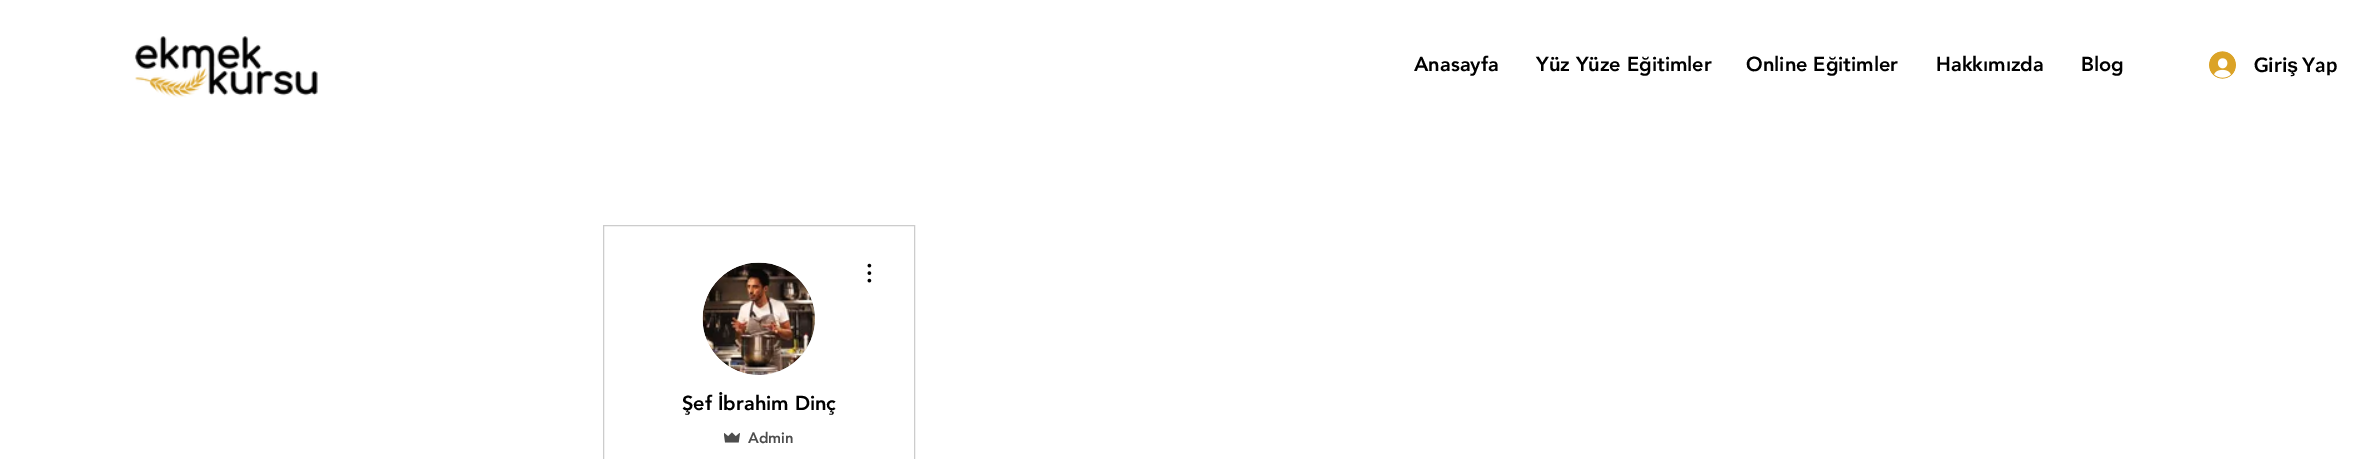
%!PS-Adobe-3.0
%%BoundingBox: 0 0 2379 459
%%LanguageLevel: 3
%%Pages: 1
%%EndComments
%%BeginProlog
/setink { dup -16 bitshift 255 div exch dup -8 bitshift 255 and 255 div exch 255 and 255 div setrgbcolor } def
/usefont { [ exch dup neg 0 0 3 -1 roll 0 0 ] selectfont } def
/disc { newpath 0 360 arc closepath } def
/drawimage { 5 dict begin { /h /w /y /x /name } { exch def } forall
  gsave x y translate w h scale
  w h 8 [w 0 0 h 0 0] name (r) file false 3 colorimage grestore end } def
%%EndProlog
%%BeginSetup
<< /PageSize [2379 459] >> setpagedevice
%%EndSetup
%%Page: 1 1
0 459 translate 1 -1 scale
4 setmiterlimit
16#FFFFFF setink
0 0 2379 459 rectfill
(img1.raw) 134 36 184 62 drawimage
/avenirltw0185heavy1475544-Black 20 usefont
16#000000 setink
[
    [(Anasayfa) 1414 71]
    [(Yüz Yüze Eğitimler) 1536 71]
    [(Online Eğitimler) 1746 71]
    [(Hakkımızda) 1936 71]
    [(Blog) 2081 71]
] { aload pop moveto show } forall
(img2.raw) 2209 51 27 28 drawimage
/Lato-Bold 20 usefont
2254 72 moveto (Giri) show
/LiberationSans-Bold 20 usefont
2287 72 moveto (ş) show
/Lato-Bold 20 usefont
2302 72 moveto (Yap) show
16#CCCCCC setink
603.5 225.5 311 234 rectstroke
16#D8D8D8 setink
759 319 56 disc fill
(img3.raw) 702 262 113 113 drawimage
(img4.raw) 867 263 5 20 drawimage
/avenirltw0185heavy1475544-Black 20 usefont
16#000000 setink
682 410 moveto (Şef İbrahim Dinç) show
(img5.raw) 724 432 16 11 drawimage
/avenirltw0185heavy1475544-Black 15 usefont
16#4D4D4D setink
748 443 moveto (Admin) show
showpage
%%EOF
